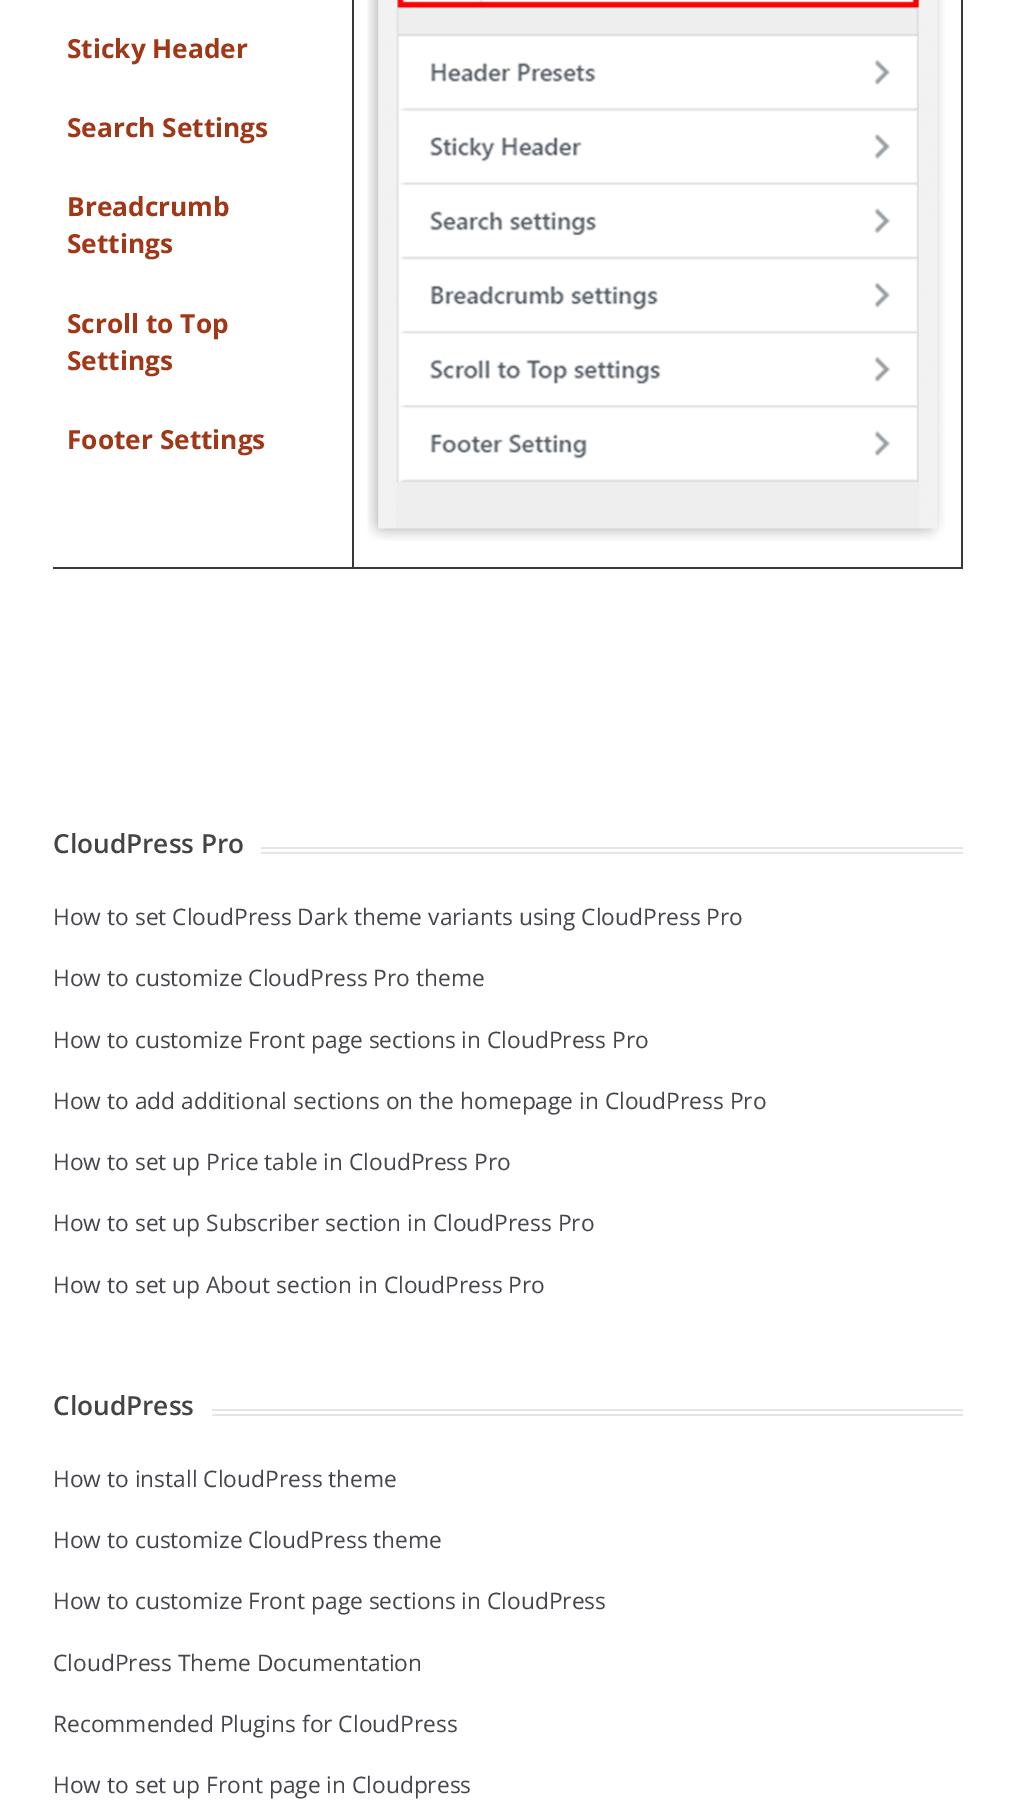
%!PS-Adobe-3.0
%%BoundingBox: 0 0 1014 1812
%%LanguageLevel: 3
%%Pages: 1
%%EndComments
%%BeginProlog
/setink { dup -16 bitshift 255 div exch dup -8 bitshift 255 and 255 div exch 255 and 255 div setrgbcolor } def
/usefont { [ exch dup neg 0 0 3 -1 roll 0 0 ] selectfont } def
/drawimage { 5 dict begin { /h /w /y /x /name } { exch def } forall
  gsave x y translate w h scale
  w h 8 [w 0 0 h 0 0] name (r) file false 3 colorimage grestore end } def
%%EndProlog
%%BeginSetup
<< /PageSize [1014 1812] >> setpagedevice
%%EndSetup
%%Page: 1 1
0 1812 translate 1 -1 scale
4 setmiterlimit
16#FFFFFF setink
0 0 1014 1812 rectfill
[
    [961 0 2 569 16#383838]
    [352 567 611 2 16#383838]
    [352 0 2 569 16#383838]
    [53 567 301 2 16#383838]
] { aload pop setink rectfill } forall
/OpenSans-Bold 26.25 usefont
16#A03717 setink
[
    [(Sticky Header) 67 58]
    [(Search Settings) 67 137]
    [(Breadcrumb) 67 216]
    [(Settings) 67 253]
    [(Scroll to Top) 67 333]
    [(Settings) 67 370]
    [(Footer Settings) 67 449]
] { aload pop moveto show } forall
(img1.raw) 367 0 578 541 drawimage
16#E5E5E5 setink
261 847 702 2 rectfill
261 852 702 2 rectfill
/OpenSans-SemiBold 26.25 usefont
16#444444 setink
53 853 moveto (CloudPress Pro) show
/OpenSans-Regular 22.75 usefont
16#45454C setink
[
    [(How to set CloudPress Dark theme variants using CloudPress Pro) 53 925]
    [(How to customize CloudPress Pro theme) 53 986]
    [(How to customize Front page sections in CloudPress Pro) 53 1048]
    [(How to add additional sections on the homepage in CloudPress Pro) 53 1109]
    [(How to set up Price table in CloudPress Pro) 53 1170]
    [(How to set up Subscriber section in CloudPress Pro) 53 1231]
    [(How to set up About section in CloudPress Pro) 53 1293]
] { aload pop moveto show } forall
16#E5E5E5 setink
212 1409 751 2 rectfill
212 1414 751 2 rectfill
/OpenSans-SemiBold 26.25 usefont
16#444444 setink
53 1415 moveto (CloudPress) show
/OpenSans-Regular 22.75 usefont
16#45454C setink
[
    [(How to install CloudPress theme) 53 1487]
    [(How to customize CloudPress theme) 53 1548]
    [(How to customize Front page sections in CloudPress) 53 1609]
    [(CloudPress Theme Documentation) 53 1671]
    [(Recommended Plugins for CloudPress) 53 1732]
    [(How to set up Front page in Cloudpress) 53 1793]
] { aload pop moveto show } forall
showpage
%%EOF
